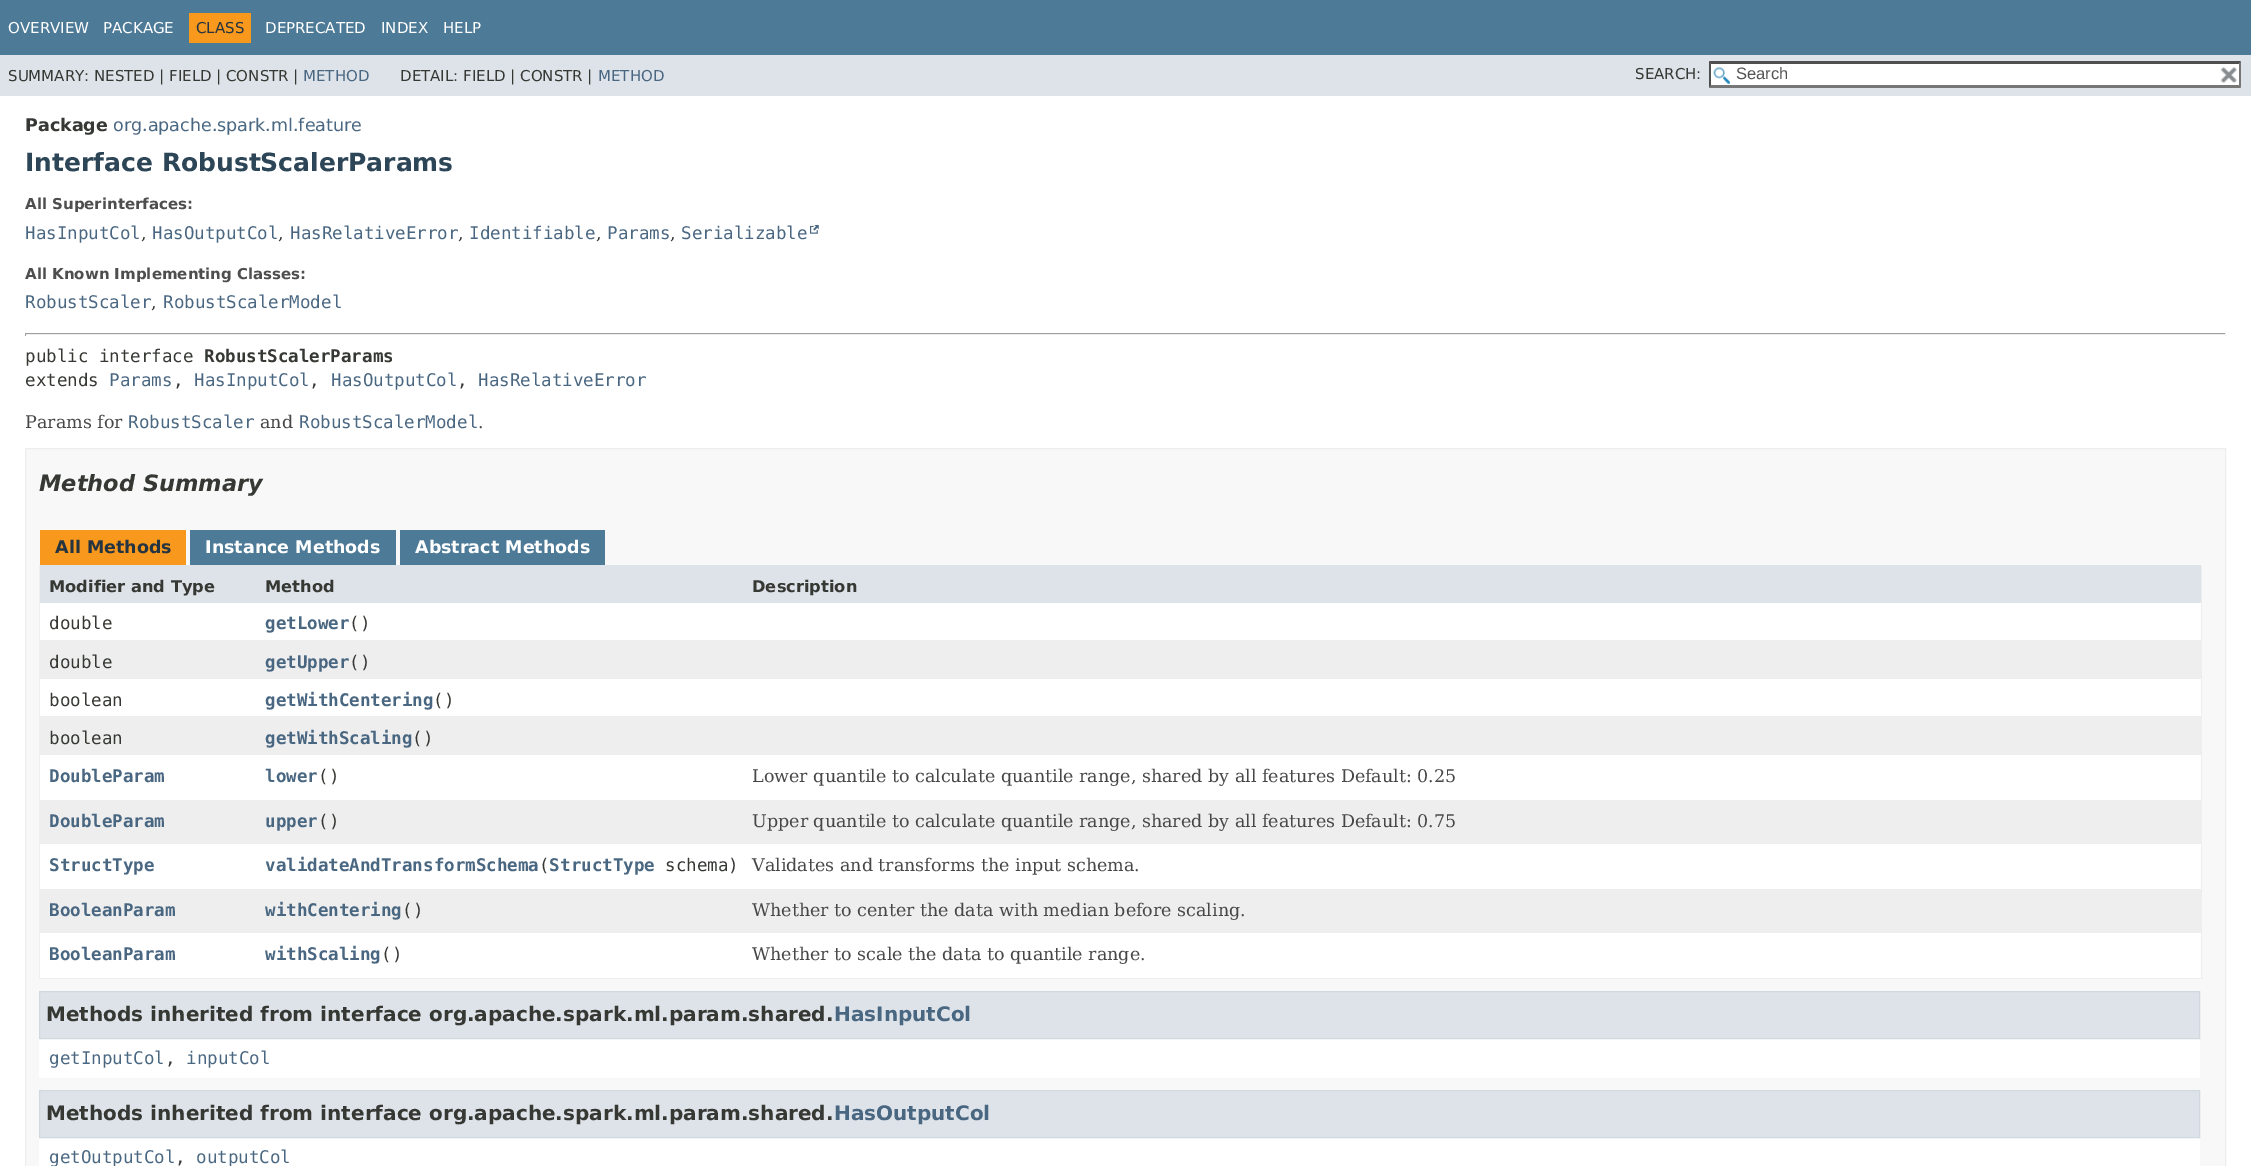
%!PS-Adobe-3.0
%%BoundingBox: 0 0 2251 1166
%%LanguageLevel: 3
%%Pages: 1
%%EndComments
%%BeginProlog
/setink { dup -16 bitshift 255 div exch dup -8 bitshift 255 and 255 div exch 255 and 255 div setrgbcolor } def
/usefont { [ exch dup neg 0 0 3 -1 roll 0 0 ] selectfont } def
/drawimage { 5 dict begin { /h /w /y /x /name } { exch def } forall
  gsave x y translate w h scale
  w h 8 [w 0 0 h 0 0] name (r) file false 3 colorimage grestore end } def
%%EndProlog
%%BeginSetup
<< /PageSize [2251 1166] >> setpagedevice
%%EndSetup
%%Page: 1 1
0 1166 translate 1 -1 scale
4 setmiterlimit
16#FFFFFF setink
0 0 2251 1166 rectfill
16#4D7A97 setink
0 0 2251 55 rectfill
/DejaVuSans-Regular 15 usefont
16#FFFFFF setink
8 33 moveto (OVERVIEW) show
103 33 moveto (PACKAGE) show
16#F8981D setink
189 13 62 30 rectfill
16#253441 setink
196 33 moveto (CLASS) show
16#FFFFFF setink
[
    [(DEPRECATED) 265 33]
    [(INDEX) 381 33]
    [(HELP) 443 33]
] { aload pop moveto show } forall
16#DEE3E9 setink
0 55 2251 41 rectfill
16#353833 setink
8 81 moveto (SUMMARY: NESTED | FIELD | CONSTR |) show
16#4A6782 setink
303 81 moveto (METHOD) show
16#353833 setink
400 81 moveto (DETAIL: FIELD | CONSTR |) show
16#4A6782 setink
598 81 moveto (METHOD) show
16#353833 setink
1635 79 moveto (SEARCH:) show
16#FFFFFF setink
1709 61 532 27 rectfill
(img1.raw) 1713 67 17 17 drawimage
16#4F4F4F setink
1709 61 moveto 2241 61 lineto 2239 64 lineto 1711 64 lineto closepath fill
16#767676 setink
2241 61 moveto 2241 87.5 lineto 2239 85 lineto 2239 64 lineto closepath fill
2241 88 moveto 1709 88 lineto 1711 85 lineto 2239 85 lineto closepath fill
16#4F4F4F setink
1709 87.5 moveto 1709 61 lineto 1711 64 lineto 1711 85 lineto closepath fill
/LiberationSans-Regular 16.5 usefont
16#545454 setink
1736 79 moveto (Search) show
(img2.raw) 2220 67 17 16 drawimage
/DejaVuSans-Bold 17.5 usefont
16#353833 setink
25 131 moveto (Package) show
/DejaVuSans-Regular 17.5 usefont
16#4A6782 setink
113 131 moveto (org.apache.spark.ml.feature) show
/DejaVuSans-Bold 25 usefont
16#2C4557 setink
25 171 moveto (Interface RobustScalerParams) show
/DejaVuSans-Bold 15 usefont
16#4E4E4E setink
25 209 moveto (All Superinterfaces:) show
/DejaVuSansMono-Regular 17.5 usefont
16#4A6782 setink
25 239 moveto (HasInputCol) show
/DejaVuSerif-Regular 17.5 usefont
16#353833 setink
141 239 moveto (,) show
/DejaVuSansMono-Regular 17.5 usefont
16#4A6782 setink
152 239 moveto (HasOutputCol) show
/DejaVuSerif-Regular 17.5 usefont
16#353833 setink
278 239 moveto (,) show
/DejaVuSansMono-Regular 17.5 usefont
16#4A6782 setink
290 239 moveto (HasRelativeError) show
/DejaVuSerif-Regular 17.5 usefont
16#353833 setink
458 239 moveto (,) show
/DejaVuSansMono-Regular 17.5 usefont
16#4A6782 setink
469 239 moveto (Identifiable) show
/DejaVuSerif-Regular 17.5 usefont
16#353833 setink
596 239 moveto (,) show
/DejaVuSansMono-Regular 17.5 usefont
16#4A6782 setink
607 239 moveto (Params) show
/DejaVuSerif-Regular 17.5 usefont
16#353833 setink
670 239 moveto (,) show
/DejaVuSansMono-Regular 17.5 usefont
16#4A6782 setink
681 239 moveto (Serializable) show
(img3.raw) 810 225 9 9 drawimage
/DejaVuSans-Bold 15 usefont
16#4E4E4E setink
25 279 moveto (All Known Implementing Classes:) show
/DejaVuSansMono-Regular 17.5 usefont
16#4A6782 setink
25 308 moveto (RobustScaler) show
/DejaVuSerif-Regular 17.5 usefont
16#353833 setink
151 308 moveto (,) show
/DejaVuSansMono-Regular 17.5 usefont
16#4A6782 setink
163 308 moveto (RobustScalerModel) show
[
    [25 333 2201 1 16#9F9F9F]
    [2225 333 1 3 16#EEEEEE]
    [25 334 2201 1 16#EEEEEE]
    [25 333 1 3 16#9F9F9F]
] { aload pop setink rectfill } forall
16#353833 setink
25 362 moveto (public interface) show
/DejaVuSansMono-Bold 17.5 usefont
204 362 moveto (RobustScalerParams) show
/DejaVuSansMono-Regular 17.5 usefont
25 386 moveto (extends) show
16#4A6782 setink
109 386 moveto (Params) show
16#353833 setink
173 386 moveto (,) show
16#4A6782 setink
194 386 moveto (HasInputCol) show
16#353833 setink
309 386 moveto (,) show
16#4A6782 setink
331 386 moveto (HasOutputCol) show
16#353833 setink
457 386 moveto (,) show
16#4A6782 setink
478 386 moveto (HasRelativeError) show
/DejaVuSerif-Regular 17.5 usefont
16#474747 setink
25 428 moveto (Params for) show
/DejaVuSansMono-Regular 17.5 usefont
16#4A6782 setink
128 428 moveto (RobustScaler) show
/DejaVuSerif-Regular 17.5 usefont
16#474747 setink
260 428 moveto (and) show
/DejaVuSansMono-Regular 17.5 usefont
16#4A6782 setink
299 428 moveto (RobustScalerModel) show
/DejaVuSerif-Regular 17.5 usefont
16#474747 setink
478 428 moveto (.) show
16#F8F8F8 setink
25.5 448.5 moveto 2225.5 448.5 lineto 2225.5 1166.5 lineto 25.5 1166.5 lineto closepath gsave fill grestore
16#EDEDED setink
stroke
/DejaVuSans-BoldItalic 22.5 usefont
16#353833 setink
39 491 moveto (Method Summary) show
16#F8981D setink
40 530 146 35 rectfill
/DejaVuSans-Bold 17.5 usefont
16#253441 setink
55 553 moveto (All Methods) show
16#4D7A97 setink
190 530 206 35 rectfill
16#FFFFFF setink
205 553 moveto (Instance Methods) show
16#4D7A97 setink
400 530 205 35 rectfill
16#FFFFFF setink
415 553 moveto (Abstract Methods) show
[
    [2201 565 1 414 16#EEEEEE]
    [39 978 2164 1 16#EEEEEE]
    [39 565 1 414 16#EEEEEE]
    [40 565 703 38 16#DEE3E9]
] { aload pop setink rectfill } forall
/DejaVuSans-Bold 16.25 usefont
16#353833 setink
49 592 moveto (Modifier and Type) show
265 592 moveto (Method) show
16#DEE3E9 setink
743 565 1458 38 rectfill
16#353833 setink
752 592 moveto (Description) show
16#FFFFFF setink
40 603 703 37 rectfill
/DejaVuSansMono-Regular 17.5 usefont
16#353833 setink
49 629 moveto (double) show
/DejaVuSansMono-Bold 17.5 usefont
16#4A6782 setink
265 629 moveto (getLower) show
/DejaVuSansMono-Regular 17.5 usefont
16#353833 setink
349 629 moveto (\(\)) show
16#FFFFFF setink
743 603 1458 37 rectfill
16#EEEEEF setink
40 640 703 39 rectfill
16#353833 setink
49 668 moveto (double) show
/DejaVuSansMono-Bold 17.5 usefont
16#4A6782 setink
265 668 moveto (getUpper) show
/DejaVuSansMono-Regular 17.5 usefont
16#353833 setink
349 668 moveto (\(\)) show
16#EEEEEF setink
743 640 1458 39 rectfill
16#FFFFFF setink
40 679 703 37 rectfill
16#353833 setink
49 706 moveto (boolean) show
/DejaVuSansMono-Bold 17.5 usefont
16#4A6782 setink
265 706 moveto (getWithCentering) show
/DejaVuSansMono-Regular 17.5 usefont
16#353833 setink
433 706 moveto (\(\)) show
16#FFFFFF setink
743 679 1458 37 rectfill
16#EEEEEF setink
40 716 703 39 rectfill
16#353833 setink
49 744 moveto (boolean) show
/DejaVuSansMono-Bold 17.5 usefont
16#4A6782 setink
265 744 moveto (getWithScaling) show
/DejaVuSansMono-Regular 17.5 usefont
16#353833 setink
412 744 moveto (\(\)) show
16#EEEEEF setink
743 716 1458 39 rectfill
16#FFFFFF setink
40 755 703 45 rectfill
/DejaVuSansMono-Bold 17.5 usefont
16#4A6782 setink
49 782 moveto (DoubleParam) show
265 782 moveto (lower) show
/DejaVuSansMono-Regular 17.5 usefont
16#353833 setink
318 782 moveto (\(\)) show
16#FFFFFF setink
743 755 1458 45 rectfill
/DejaVuSerif-Regular 17.5 usefont
16#474747 setink
752 782 moveto (Lower quantile to calculate quantile range, shared by all features Default: 0.25) show
16#EEEEEF setink
40 800 703 44 rectfill
/DejaVuSansMono-Bold 17.5 usefont
16#4A6782 setink
49 827 moveto (DoubleParam) show
265 827 moveto (upper) show
/DejaVuSansMono-Regular 17.5 usefont
16#353833 setink
318 827 moveto (\(\)) show
16#EEEEEF setink
743 800 1458 44 rectfill
/DejaVuSerif-Regular 17.5 usefont
16#474747 setink
752 827 moveto (Upper quantile to calculate quantile range, shared by all features Default: 0.75) show
16#FFFFFF setink
40 844 703 45 rectfill
/DejaVuSansMono-Bold 17.5 usefont
16#4A6782 setink
49 871 moveto (StructType) show
265 871 moveto (validateAndTransformSchema StructType) show
/DejaVuSansMono-Regular 17.5 usefont
16#353833 setink
539 871 moveto (\() show
665 871 moveto (schema\)) show
16#FFFFFF setink
743 844 1458 45 rectfill
/DejaVuSerif-Regular 17.5 usefont
16#474747 setink
752 871 moveto (Validates and transforms the input schema.) show
16#EEEEEF setink
40 889 703 44 rectfill
/DejaVuSansMono-Bold 17.5 usefont
16#4A6782 setink
49 916 moveto (BooleanParam) show
265 916 moveto (withCentering) show
/DejaVuSansMono-Regular 17.5 usefont
16#353833 setink
402 916 moveto (\(\)) show
16#EEEEEF setink
743 889 1458 44 rectfill
/DejaVuSerif-Regular 17.5 usefont
16#474747 setink
752 916 moveto (Whether to center the data with median before scaling.) show
16#FFFFFF setink
40 933 703 45 rectfill
/DejaVuSansMono-Bold 17.5 usefont
16#4A6782 setink
49 960 moveto (BooleanParam) show
265 960 moveto (withScaling) show
/DejaVuSansMono-Regular 17.5 usefont
16#353833 setink
381 960 moveto (\(\)) show
16#FFFFFF setink
743 933 1458 45 rectfill
/DejaVuSerif-Regular 17.5 usefont
16#474747 setink
752 960 moveto (Whether to scale the data to quantile range.) show
16#FFFFFF setink
39 1039 2161 39 rectfill
16#DEE3E9 setink
39.5 991.5 moveto 2199.5 991.5 lineto 2199.5 1038.5 lineto 39.5 1038.5 lineto closepath gsave fill grestore
16#D0D9E0 setink
stroke
/DejaVuSans-Bold 20 usefont
16#353833 setink
46 1021 moveto (Methods inherited from interface org.apache.spark.ml.param.shared.) show
16#4A6782 setink
834 1021 moveto (HasInputCol) show
/DejaVuSansMono-Regular 17.5 usefont
49 1064 moveto (getInputCol) show
16#353833 setink
165 1064 moveto (,) show
16#4A6782 setink
186 1064 moveto (inputCol) show
16#FFFFFF setink
39 1138 2161 28 rectfill
16#DEE3E9 setink
39.5 1090.5 moveto 2199.5 1090.5 lineto 2199.5 1137.5 lineto 39.5 1137.5 lineto closepath gsave fill grestore
16#D0D9E0 setink
stroke
/DejaVuSans-Bold 20 usefont
16#353833 setink
46 1120 moveto (Methods inherited from interface org.apache.spark.ml.param.shared.) show
16#4A6782 setink
834 1120 moveto (HasOutputCol) show
/DejaVuSansMono-Regular 17.5 usefont
49 1163 moveto (getOutputCol) show
16#353833 setink
175 1163 moveto (,) show
16#4A6782 setink
196 1163 moveto (outputCol) show
showpage
%%EOF
